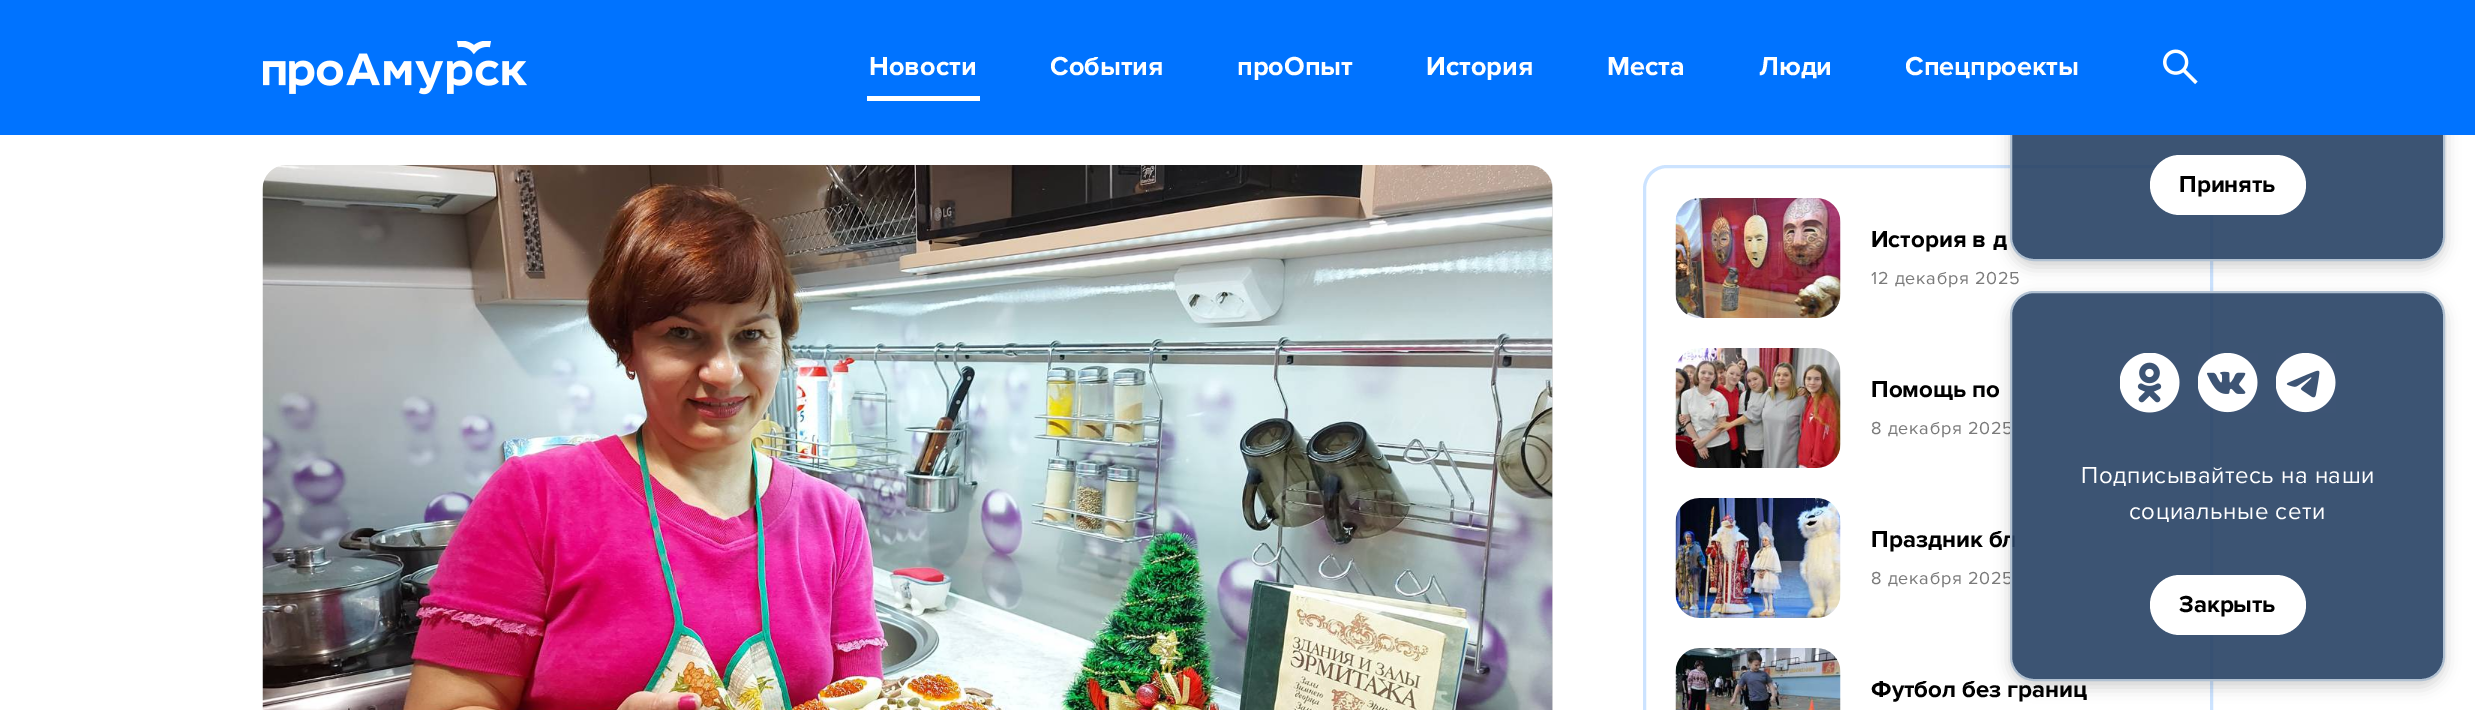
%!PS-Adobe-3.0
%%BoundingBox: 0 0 2475 710
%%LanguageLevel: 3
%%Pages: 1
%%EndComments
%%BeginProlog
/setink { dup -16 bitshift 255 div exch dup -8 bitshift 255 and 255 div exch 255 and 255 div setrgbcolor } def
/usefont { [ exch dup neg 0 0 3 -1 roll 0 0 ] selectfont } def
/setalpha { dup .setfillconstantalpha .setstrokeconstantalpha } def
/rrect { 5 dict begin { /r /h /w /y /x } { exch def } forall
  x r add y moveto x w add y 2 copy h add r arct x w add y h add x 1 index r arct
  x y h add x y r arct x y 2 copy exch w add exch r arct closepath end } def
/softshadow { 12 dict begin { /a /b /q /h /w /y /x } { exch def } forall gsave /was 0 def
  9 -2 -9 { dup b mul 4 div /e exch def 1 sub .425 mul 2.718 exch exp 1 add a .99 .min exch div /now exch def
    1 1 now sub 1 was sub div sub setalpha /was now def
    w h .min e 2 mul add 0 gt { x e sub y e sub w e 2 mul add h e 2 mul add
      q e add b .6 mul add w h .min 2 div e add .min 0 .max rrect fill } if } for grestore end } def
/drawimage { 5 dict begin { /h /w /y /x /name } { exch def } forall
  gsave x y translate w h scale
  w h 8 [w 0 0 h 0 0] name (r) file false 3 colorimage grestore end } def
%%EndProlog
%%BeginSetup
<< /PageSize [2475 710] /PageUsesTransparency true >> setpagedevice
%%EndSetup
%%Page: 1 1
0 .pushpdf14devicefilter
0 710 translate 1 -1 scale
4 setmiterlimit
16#FFFFFF setink
0 0 2475 710 rectfill
16#CCE3FF setink
3 setlinewidth
1644.5 166.5 567 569 22.5 rrect stroke
gsave
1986 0 moveto 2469 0 lineto 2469 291 lineto 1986 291 lineto closepath 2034 -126 moveto 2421 -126 lineto 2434.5 -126 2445 -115.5 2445 -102 curveto 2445 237 lineto 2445 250.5 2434.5 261 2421 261 curveto 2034 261 lineto 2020.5 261 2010 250.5 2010 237 curveto 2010 -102 lineto 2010 -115.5 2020.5 -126 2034 -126 curveto closepath eoclip newpath
16#000000 setink
2010 -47 435 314 24 7.5 0.18 softshadow
grestore
0.9 setalpha
16#274164 setink
2011 -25 433 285 23 rrect fill
1 setalpha
16#B1C1D2 setink
2 setlinewidth
2011 -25 433 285 23 rrect stroke
16#0073FF setink
0 0 2475 135 rectfill
(img1.raw) 263 41 264 54 drawimage
/ProximaNova-Bold 27 usefont
16#FFFFFF setink
869 75 moveto (Новости) show
867 96 113 5 rectfill
[
    [(События) 1050 75]
    [(проОпыт) 1237 75]
    [(История) 1426 75]
    [(Места) 1607 75]
    [(Люди) 1759 75]
    [(Спецпроекты) 1905 75]
] { aload pop moveto show } forall
(img2.raw) 2163 49 35 36 drawimage
16#DFDFDF setink
263 165 1290 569 24 rrect fill
(img3.raw) 262 165 1291 545 drawimage
(img4.raw) 1675 198 166 120 drawimage
/ProximaNova-Bold 24 usefont
16#000000 setink
1871 247 moveto (История в д) show
/ProximaNova-Regular 18 usefont
16#7A7A7A setink
1871 284 moveto 0.75 0 (12 декабря 2025) ashow
(img5.raw) 1675 348 166 120 drawimage
/ProximaNova-Bold 24 usefont
16#000000 setink
1871 397 moveto (Помощь по) show
/ProximaNova-Regular 18 usefont
16#7A7A7A setink
1871 434 moveto 0.75 0 (8 декабря 2025) ashow
(img6.raw) 1675 498 166 120 drawimage
/ProximaNova-Bold 24 usefont
16#000000 setink
1871 547 moveto (Праздник бл) show
/ProximaNova-Regular 18 usefont
16#7A7A7A setink
1871 584 moveto 0.75 0 (8 декабря 2025) ashow
(img7.raw) 1675 648 166 62 drawimage
/ProximaNova-Bold 24 usefont
16#000000 setink
1871 697 moveto (Футбол без границ) show
16#FFFFFF setink
2150 155 156 60 30 rrect fill
16#000000 setink
2179 192 moveto (Принять) show
gsave
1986 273 moveto 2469 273 lineto 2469 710 lineto 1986 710 lineto closepath 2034 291 moveto 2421 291 lineto 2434.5 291 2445 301.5 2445 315 curveto 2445 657 lineto 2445 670.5 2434.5 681 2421 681 curveto 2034 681 lineto 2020.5 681 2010 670.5 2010 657 curveto 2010 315 lineto 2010 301.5 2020.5 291 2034 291 curveto closepath eoclip newpath
2010 297 435 390 24 7.5 0.18 softshadow
grestore
0.9 setalpha
16#274164 setink
2011 292 433 388 23 rrect fill
1 setalpha
16#B1C1D2 setink
2011 292 433 388 23 rrect stroke
(img8.raw) 2120 353 60 60 drawimage
(img9.raw) 2198 353 60 60 drawimage
(img10.raw) 2276 353 60 60 drawimage
/ProximaNova-Regular 24 usefont
16#FFFFFF setink
2081 483 moveto 0.5 0 (Подписывайтесь на наши) ashow
2129 519 moveto 0.5 0 (социальные сети) ashow
2150 575 156 60 30 rrect fill
/ProximaNova-Bold 24 usefont
16#000000 setink
2179 612 moveto (Закрыть) show
.poppdf14devicefilter showpage
%%EOF
